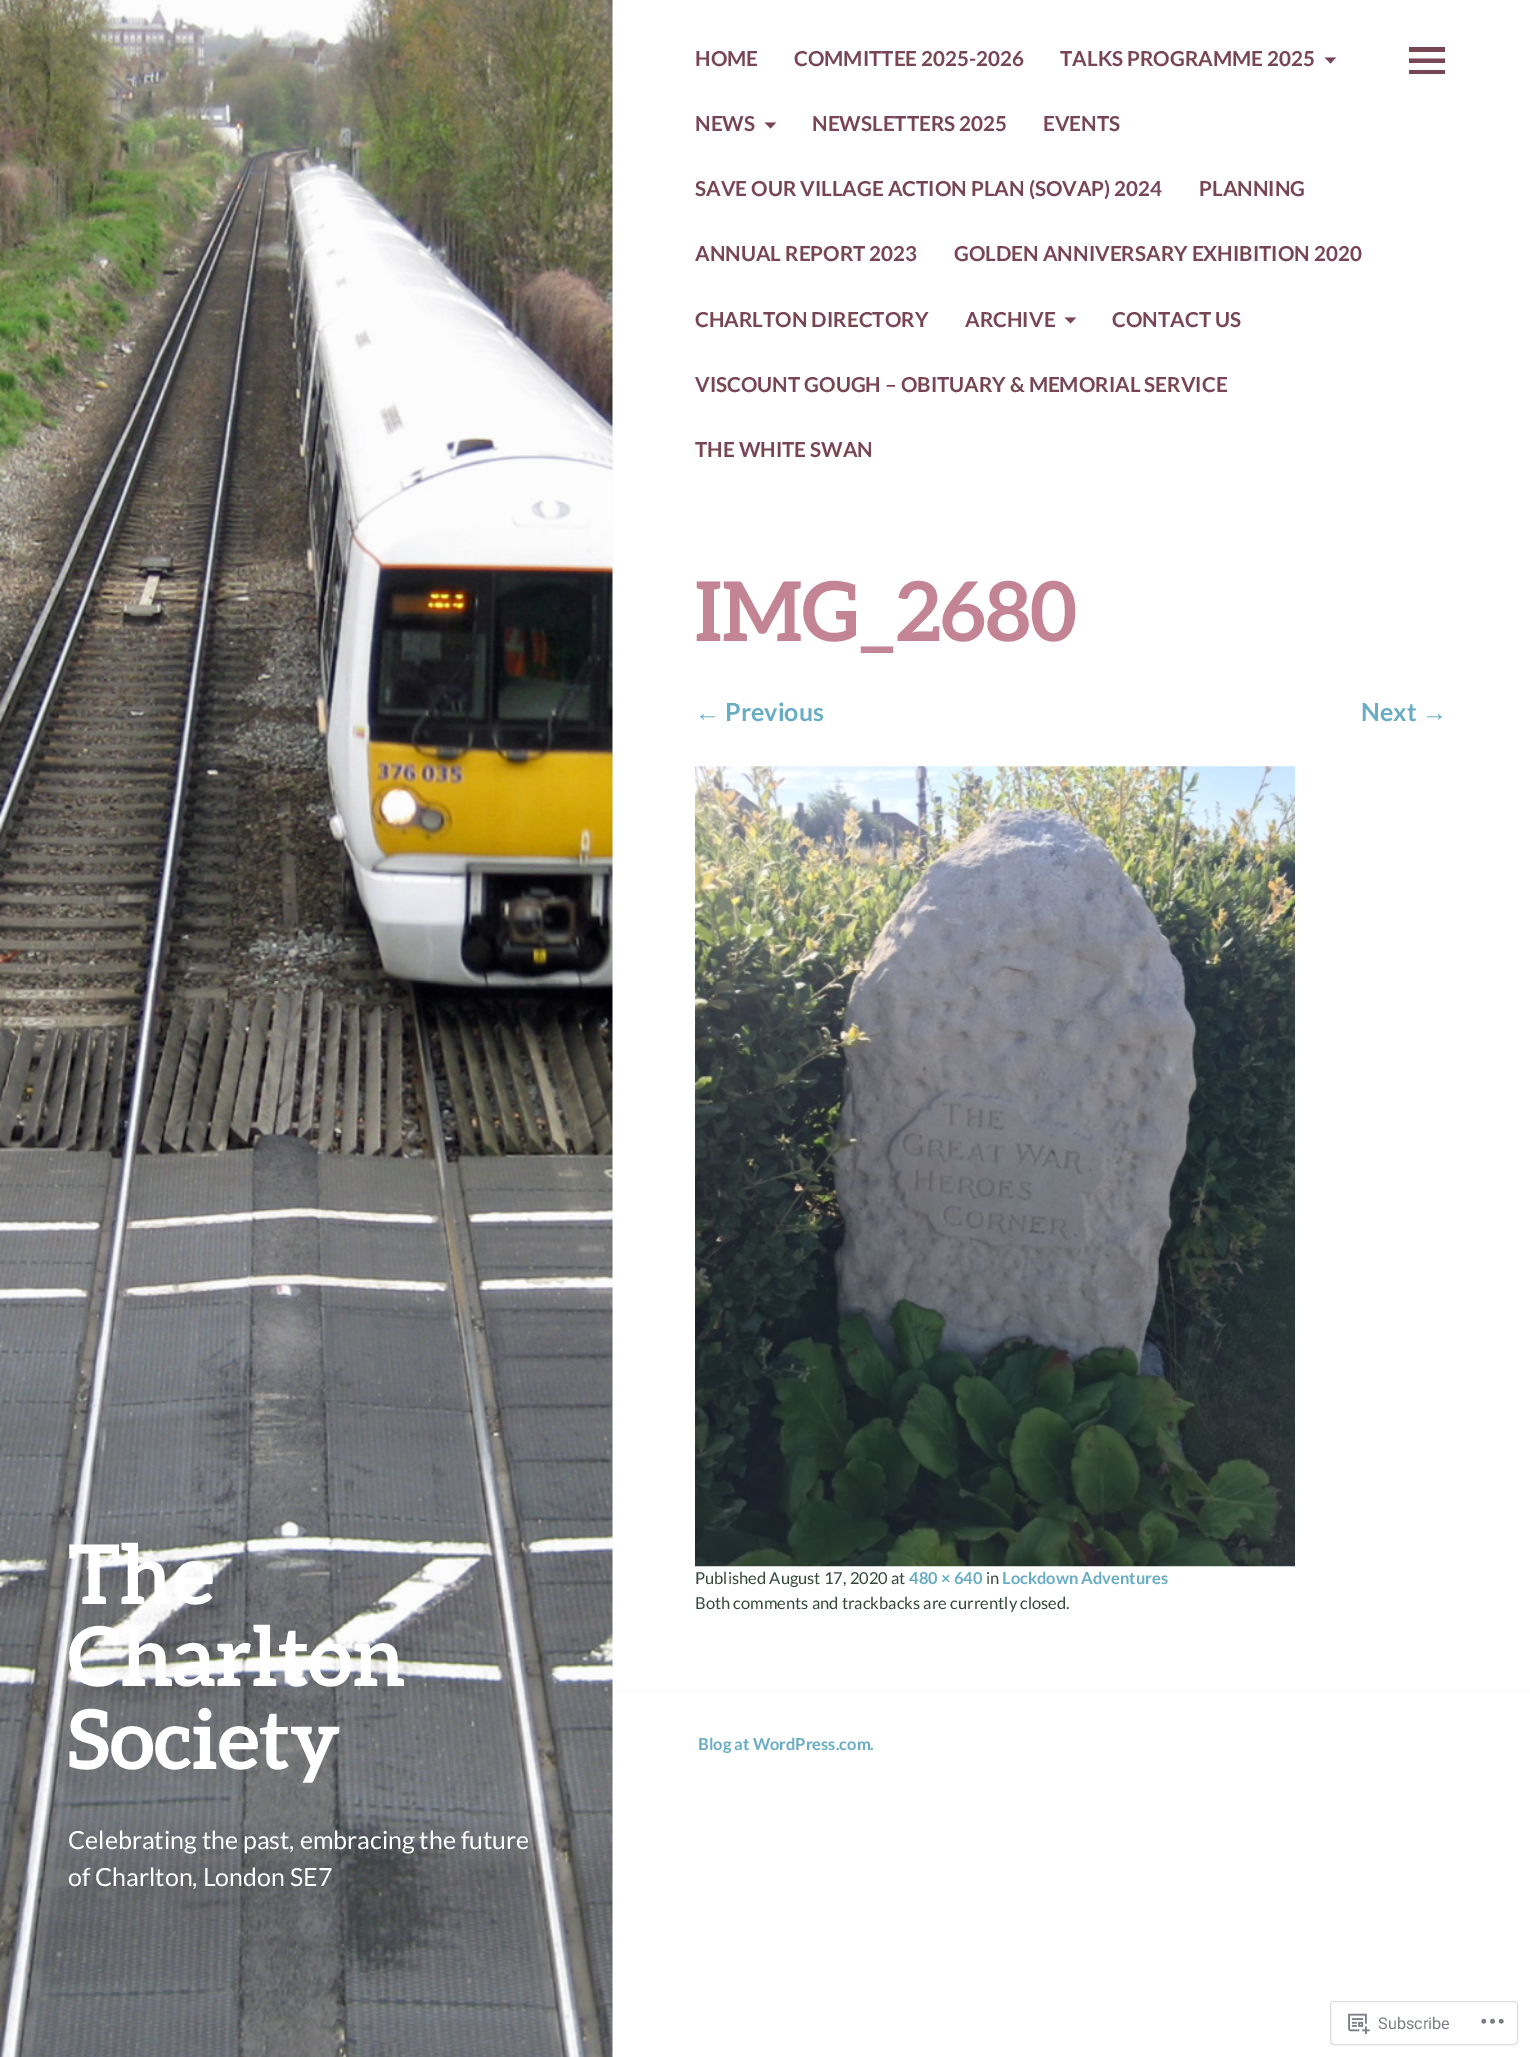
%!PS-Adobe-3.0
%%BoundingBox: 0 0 1530 2057
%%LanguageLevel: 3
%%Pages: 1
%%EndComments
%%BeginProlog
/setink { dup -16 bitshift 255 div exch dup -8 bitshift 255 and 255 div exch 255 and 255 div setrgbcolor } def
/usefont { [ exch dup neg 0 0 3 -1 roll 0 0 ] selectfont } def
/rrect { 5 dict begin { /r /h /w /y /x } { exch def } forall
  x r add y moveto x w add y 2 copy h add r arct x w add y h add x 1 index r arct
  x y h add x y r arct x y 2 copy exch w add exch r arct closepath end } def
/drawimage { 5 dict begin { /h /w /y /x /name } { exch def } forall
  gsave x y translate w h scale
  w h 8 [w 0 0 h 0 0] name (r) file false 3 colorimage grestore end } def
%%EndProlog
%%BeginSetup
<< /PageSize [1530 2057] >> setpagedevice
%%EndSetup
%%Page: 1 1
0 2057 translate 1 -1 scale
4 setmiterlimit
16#FFFFFF setink
0 0 1530 2057 rectfill
/Lato-Bold 20.6 usefont
16#774553 setink
[
    [(HOME) 695 66]
    [(COMMITTEE 2025-2026) 794 66]
    [(TALKS PROGRAMME 2025) 1060 66]
] { aload pop moveto show } forall
1324.5 57.5 moveto 1336 57.5 lineto 1330.5 63.5 lineto closepath fill
695 131 moveto (NEWS) show
764.5 122.5 moveto 776 122.5 lineto 770.5 128.5 lineto closepath fill
[
    [(NEWSLETTERS 2025) 812 131]
    [(EVENTS) 1043 131]
    [(SAVE OUR VILLAGE ACTION PLAN \(SOVAP\) 2024) 695 196]
    [(PLANNING) 1199 196]
    [(ANNUAL REPORT 2023) 695 261]
    [(GOLDEN ANNIVERSARY EXHIBITION 2020) 954 261]
    [(CHARLTON DIRECTORY) 695 327]
    [(ARCHIVE) 965 327]
] { aload pop moveto show } forall
1064.5 317.5 moveto 1076 317.5 lineto 1070.5 323.5 lineto closepath fill
[
    [(CONTACT US) 1112 327]
    [(VISCOUNT GOUGH – OBITUARY & MEMORIAL SERVICE) 695 392]
    [(THE WHITE SWAN) 695 457]
] { aload pop moveto show } forall
1409 74 moveto 1409 70 lineto 1445 70 lineto 1445 74 lineto closepath 1409 47 moveto 1445 47 lineto 1445 52 lineto 1409 52 lineto closepath 1409 63 moveto 1409 58.5 lineto 1445 58.5 lineto 1445 63 lineto closepath fill
/Aleo-Bold 82.5 usefont
16#C38596 setink
695 641 moveto (IMG_2680) show
/LiberationSans-Bold 25 usefont
16#68ADC3 setink
695 721 moveto (←) show
/Lato-Bold 25 usefont
725 721 moveto (Previous) show
1361 721 moveto (Next) show
/LiberationSans-Bold 25 usefont
1422 721 moveto (→) show
(img1.raw) 695 766 600 801 drawimage
/Lato-Regular 16.5 usefont
16#33473D setink
695 1584 moveto (Published August 17, 2020 at) show
/Lato-Bold 16.5 usefont
16#68ADC3 setink
909 1584 moveto (480 × 640) show
/Lato-Regular 16.5 usefont
16#33473D setink
986 1584 moveto (in) show
/Lato-Bold 16.5 usefont
16#68ADC3 setink
1002 1584 moveto (Lockdown Adventures) show
/Lato-Regular 16.5 usefont
16#33473D setink
695 1609 moveto (Both comments and trackbacks are currently closed.) show
16#F6F7F6 setink
612 0 1 2057 rectfill
(img2.raw) 0 0 613 2057 drawimage
/Aleo-Bold 82.5 usefont
16#FFFFFF setink
[
    [(The) 68 1604]
    [(Charlton) 68 1686]
    [(Society) 68 1769]
] { aload pop moveto show } forall
/Lato-Regular 25 usefont
68 1849 moveto (Celebrating the past, embracing the future) show
68 1886 moveto (of Charlton, London SE7) show
16#F5F6F5 setink
613 1691 917 1 rectfill
/Lato-Bold 16.5 usefont
16#68ADC3 setink
698 1750 moveto (Blog at WordPress.com.) show
16#DDDDDF setink
1330.5 2001.5 187 43 3.5 rrect stroke
(img3.raw) 1348 2013 22 22 drawimage
/Roboto-Regular 16.25 usefont
16#7B7F85 setink
1378 2029 moveto (Subscribe) show
(img4.raw) 1481 2018 23 6 drawimage
showpage
%%EOF
